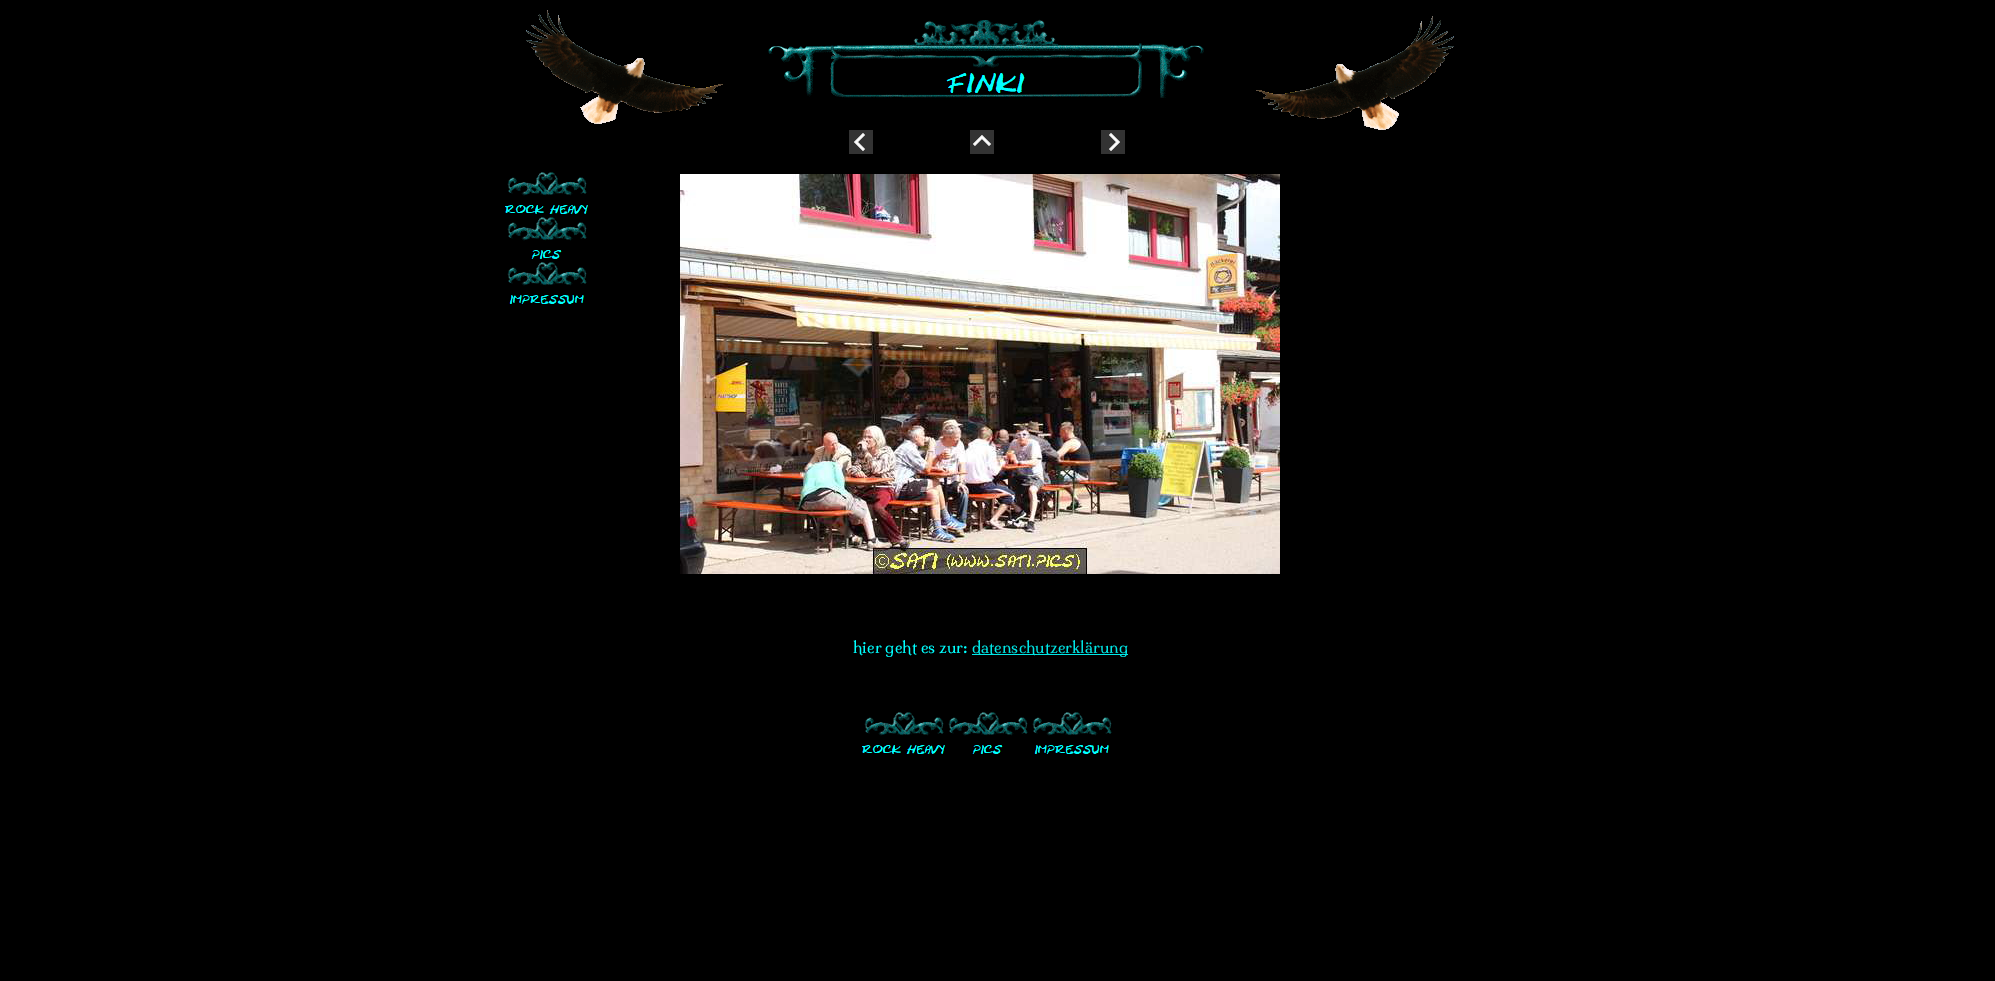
%!PS-Adobe-3.0
%%BoundingBox: 0 0 1995 981
%%LanguageLevel: 3
%%Pages: 1
%%EndComments
%%BeginProlog
/setink { dup -16 bitshift 255 div exch dup -8 bitshift 255 and 255 div exch 255 and 255 div setrgbcolor } def
/usefont { [ exch dup neg 0 0 3 -1 roll 0 0 ] selectfont } def
/drawimage { 5 dict begin { /h /w /y /x /name } { exch def } forall
  gsave x y translate w h scale
  w h 8 [w 0 0 h 0 0] name (r) file false 3 colorimage grestore end } def
%%EndProlog
%%BeginSetup
<< /PageSize [1995 981] >> setpagedevice
%%EndSetup
%%Page: 1 1
0 981 translate 1 -1 scale
4 setmiterlimit
16#000000 setink
0 0 1995 981 rectfill
(img1.raw) 526 10 197 114 drawimage
(img2.raw) 768 19 436 79 drawimage
(img3.raw) 1256 16 198 114 drawimage
(img4.raw) 849 130 24 24 drawimage
(img5.raw) 970 130 24 24 drawimage
(img6.raw) 1101 130 24 24 drawimage
(img7.raw) 505 172 83 42 drawimage
(img8.raw) 507 217 80 42 drawimage
(img9.raw) 507 262 80 42 drawimage
(img10.raw) 680 174 600 400 drawimage
/Milonga-Regular 16 usefont
16#00FFFF setink
853 653 moveto (hier geht es zur:) show
16#00E6E6 setink
972 654 156 1 rectfill
972 653 moveto (datenschutzerklärung) show
(img7.raw) 862 712 83 42 drawimage
(img8.raw) 948 712 80 42 drawimage
(img9.raw) 1032 712 80 42 drawimage
showpage
%%EOF
